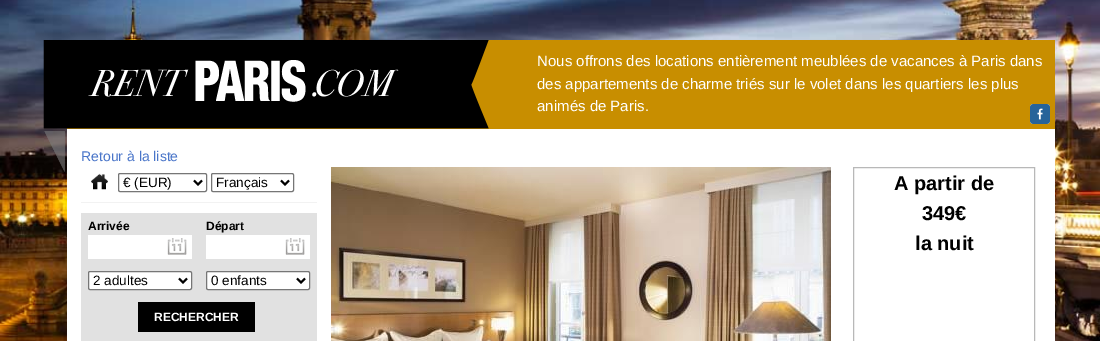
%!PS-Adobe-3.0
%%BoundingBox: 0 0 1100 341
%%LanguageLevel: 3
%%Pages: 1
%%EndComments
%%BeginProlog
/setink { dup -16 bitshift 255 div exch dup -8 bitshift 255 and 255 div exch 255 and 255 div setrgbcolor } def
/usefont { [ exch dup neg 0 0 3 -1 roll 0 0 ] selectfont } def
/rrect { 5 dict begin { /r /h /w /y /x } { exch def } forall
  x r add y moveto x w add y 2 copy h add r arct x w add y h add x 1 index r arct
  x y h add x y r arct x y 2 copy exch w add exch r arct closepath end } def
/drawimage { 5 dict begin { /h /w /y /x /name } { exch def } forall
  gsave x y translate w h scale
  w h 8 [w 0 0 h 0 0] name (r) file false 3 colorimage grestore end } def
%%EndProlog
%%BeginSetup
<< /PageSize [1100 341] >> setpagedevice
%%EndSetup
%%Page: 1 1
0 341 translate 1 -1 scale
4 setmiterlimit
16#FFFFFF setink
0 0 1100 341 rectfill
(img1.raw) 0 0 1100 341 drawimage
16#C88E00 setink
67 40 988 89 rectfill
(img2.raw) 43 40 446 132 drawimage
(img3.raw) 88 60 311 42 drawimage
/LiberationSans-Regular 15 usefont
16#FFFFFF setink
[
    [(Nous offrons des locations entièrement meublées de vacances à Paris dans) 537 66]
    [(des appartements de charme triés sur le volet dans les quartiers les plus) 537 89]
    [(animés de Paris.) 537 111]
] { aload pop moveto show } forall
1030 104 20 20 3 rrect fill
(img4.raw) 1030 104 20 20 drawimage
67 129 988 212 rectfill
/LiberationSans-Regular 14 usefont
16#4975C9 setink
81 161 moveto (Retour à la liste) show
16#F2F2F2 setink
81 202 236 1 rectfill
(img5.raw) 91 173 17 17 drawimage
16#767676 setink
118.5 173.5 88 18 1.5 rrect stroke
16#000000 setink
2 setlinewidth
194 180.5 moveto 198 184.5 lineto 202 180.5 lineto stroke
/LiberationSans-Regular 13.5 usefont
123 187 moveto (€ \(EUR\)) show
16#767676 setink
1 setlinewidth
211.5 173.5 82 18 1.5 rrect stroke
16#000000 setink
2 setlinewidth
281 180.5 moveto 285 184.5 lineto 289 180.5 lineto stroke
216 187 moveto (Français) show
16#E1E1E1 setink
81 213 236 128 rectfill
/LiberationSans-Bold 12 usefont
16#000000 setink
88 230 moveto (Arrivée) show
16#FFFFFF setink
88 235 104 24 rectfill
(img6.raw) 167 238 20 17 drawimage
16#000000 setink
206 230 moveto (Départ) show
16#FFFFFF setink
206 235 104 24 rectfill
(img6.raw) 285 238 20 17 drawimage
88.5 271.5 103 18 1.5 rrect gsave fill grestore
16#767676 setink
1 setlinewidth
stroke
16#000000 setink
2 setlinewidth
179 278.5 moveto 183 282.5 lineto 187 278.5 lineto stroke
/LiberationSans-Regular 13.5 usefont
93 285 moveto (2 adultes) show
16#FFFFFF setink
206.5 271.5 103 18 1.5 rrect gsave fill grestore
16#767676 setink
1 setlinewidth
stroke
16#000000 setink
2 setlinewidth
297 278.5 moveto 301 282.5 lineto 305 278.5 lineto stroke
211 285 moveto (0 enfants) show
138 302 117 30 rectfill
/LiberationSans-Bold 12 usefont
16#FFFFFF setink
154 321 moveto (RECHERCHER) show
(img7.raw) 331 167 500 174 drawimage
16#B8B8B8 setink
1 setlinewidth
853.5 167.5 181 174 rectstroke
/LiberationSans-Bold 20 usefont
16#000000 setink
[
    [(A partir de) 894 190]
    [(349€) 922 220]
    [(la nuit) 915 250]
] { aload pop moveto show } forall
showpage
%%EOF
